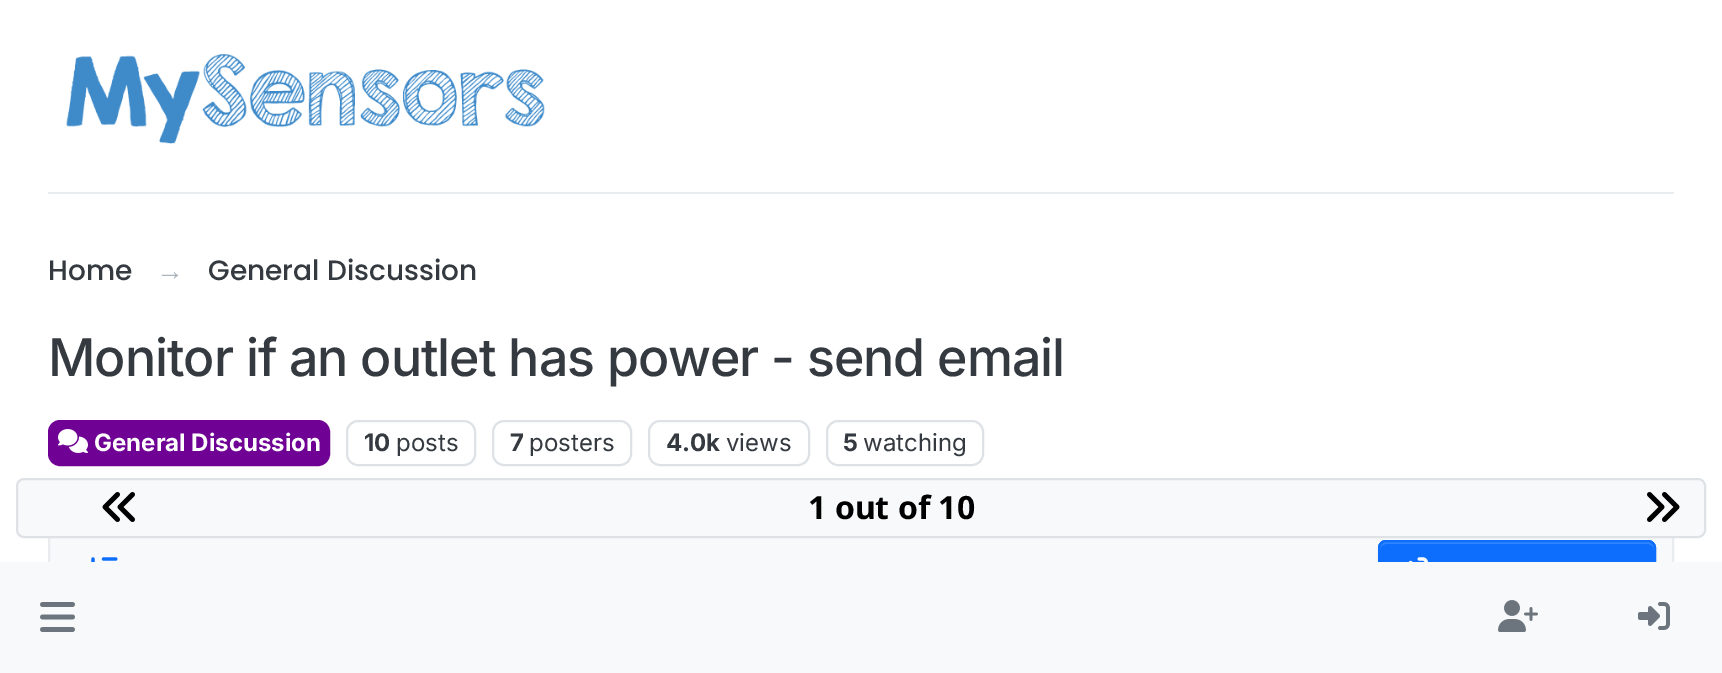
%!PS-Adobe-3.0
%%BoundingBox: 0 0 1722 673
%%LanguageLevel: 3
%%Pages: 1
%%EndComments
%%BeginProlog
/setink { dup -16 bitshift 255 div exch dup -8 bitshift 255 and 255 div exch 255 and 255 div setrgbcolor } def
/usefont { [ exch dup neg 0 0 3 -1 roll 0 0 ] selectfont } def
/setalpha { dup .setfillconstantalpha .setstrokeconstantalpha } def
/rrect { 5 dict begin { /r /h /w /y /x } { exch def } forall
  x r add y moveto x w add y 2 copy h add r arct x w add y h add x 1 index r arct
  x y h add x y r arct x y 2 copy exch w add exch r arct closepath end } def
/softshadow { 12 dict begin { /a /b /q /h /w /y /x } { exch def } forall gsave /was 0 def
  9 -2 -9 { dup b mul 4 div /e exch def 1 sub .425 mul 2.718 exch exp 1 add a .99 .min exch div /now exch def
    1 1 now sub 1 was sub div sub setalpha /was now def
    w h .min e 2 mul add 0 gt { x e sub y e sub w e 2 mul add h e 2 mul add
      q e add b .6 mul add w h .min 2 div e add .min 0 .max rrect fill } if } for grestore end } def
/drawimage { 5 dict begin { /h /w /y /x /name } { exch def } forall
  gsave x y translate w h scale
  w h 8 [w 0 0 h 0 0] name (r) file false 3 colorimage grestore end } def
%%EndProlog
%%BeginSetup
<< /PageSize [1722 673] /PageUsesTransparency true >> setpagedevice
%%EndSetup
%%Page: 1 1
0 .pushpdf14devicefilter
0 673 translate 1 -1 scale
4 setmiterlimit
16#FFFFFF setink
0 0 1722 673 rectfill
16#E9ECEF setink
48 192 1626 2 rectfill
(img1.raw) 66 54 479 90 drawimage
/Poppins-Medium 28 usefont
16#343A40 setink
48 280 moveto (Home) show
/LiberationSans-Regular 28 usefont
16#ADB5BD setink
156 280 moveto (→) show
/Poppins-Medium 28 usefont
16#343A40 setink
208 280 moveto (General Discussion) show
/Inter-Medium 51.9 usefont
48 376 moveto -1.05 0 (Monitor if an outlet has power - send email) ashow
16#6F0294 setink
49 421 280 44 11 rrect gsave fill grestore
2 setlinewidth
stroke
(img2.raw) 58 429 30 24 drawimage
/Inter-Bold 24 usefont
16#FFFFFF setink
94 451 moveto (General Discussion) show
16#DEE2E6 setink
347 421 128 44 11 rrect stroke
16#343A40 setink
364 451 moveto (10) show
/Inter-Regular 24 usefont
396 451 moveto (posts) show
16#DEE2E6 setink
493 421 138 44 11 rrect stroke
/Inter-Bold 24 usefont
16#343A40 setink
510 451 moveto (7) show
/Inter-Regular 24 usefont
529 451 moveto (posters) show
16#DEE2E6 setink
649 421 160 44 11 rrect stroke
/Inter-Bold 24 usefont
16#343A40 setink
666 451 moveto (4.0k) show
/Inter-Regular 24 usefont
726 451 moveto (views) show
16#DEE2E6 setink
827 421 156 44 11 rrect stroke
/Inter-Bold 24 usefont
16#343A40 setink
843 451 moveto (5) show
/Inter-Regular 24 usefont
863 451 moveto (watching) show
16#F8F9FA setink
50 538 1622 24 rectfill
16#E9ECEF setink
49 523 1624 96 rectstroke
(img3.raw) 91 557 27 5 drawimage
16#000000 setink
1378 542 278 62 8 1 0.07 softshadow
16#0D6EFD setink
1378 540 278 62 8 rrect fill
16#3184FD setink
1386 544 moveto 1648 544 lineto 1651 544 1654 547 1654 550 curveto 1654 547 1653 543 1649 542 curveto 1385 542 lineto 1381 543 1380 547 1380 550 curveto 1380 547 1383 544 1386 544 curveto closepath fill
16#0D6EFD setink
1379 541 276 60 7 rrect stroke
(img4.raw) 1408 557 20 5 drawimage
16#F8F9FA setink
17 479 1688 58 7 rrect gsave fill grestore
16#DEE2E6 setink
stroke
(img5.raw) 102 492 33 30 drawimage
/NotoSans-Bold 32 usefont
16#000000 setink
808 519 moveto (1 out of 10) show
(img6.raw) 1647 492 33 30 drawimage
16#F8F9FA setink
0 562 1722 111 rectfill
(img7.raw) 40 602 35 30 drawimage
(img8.raw) 1498 600 40 32 drawimage
(img9.raw) 1638 602 32 28 drawimage
.poppdf14devicefilter showpage
%%EOF
